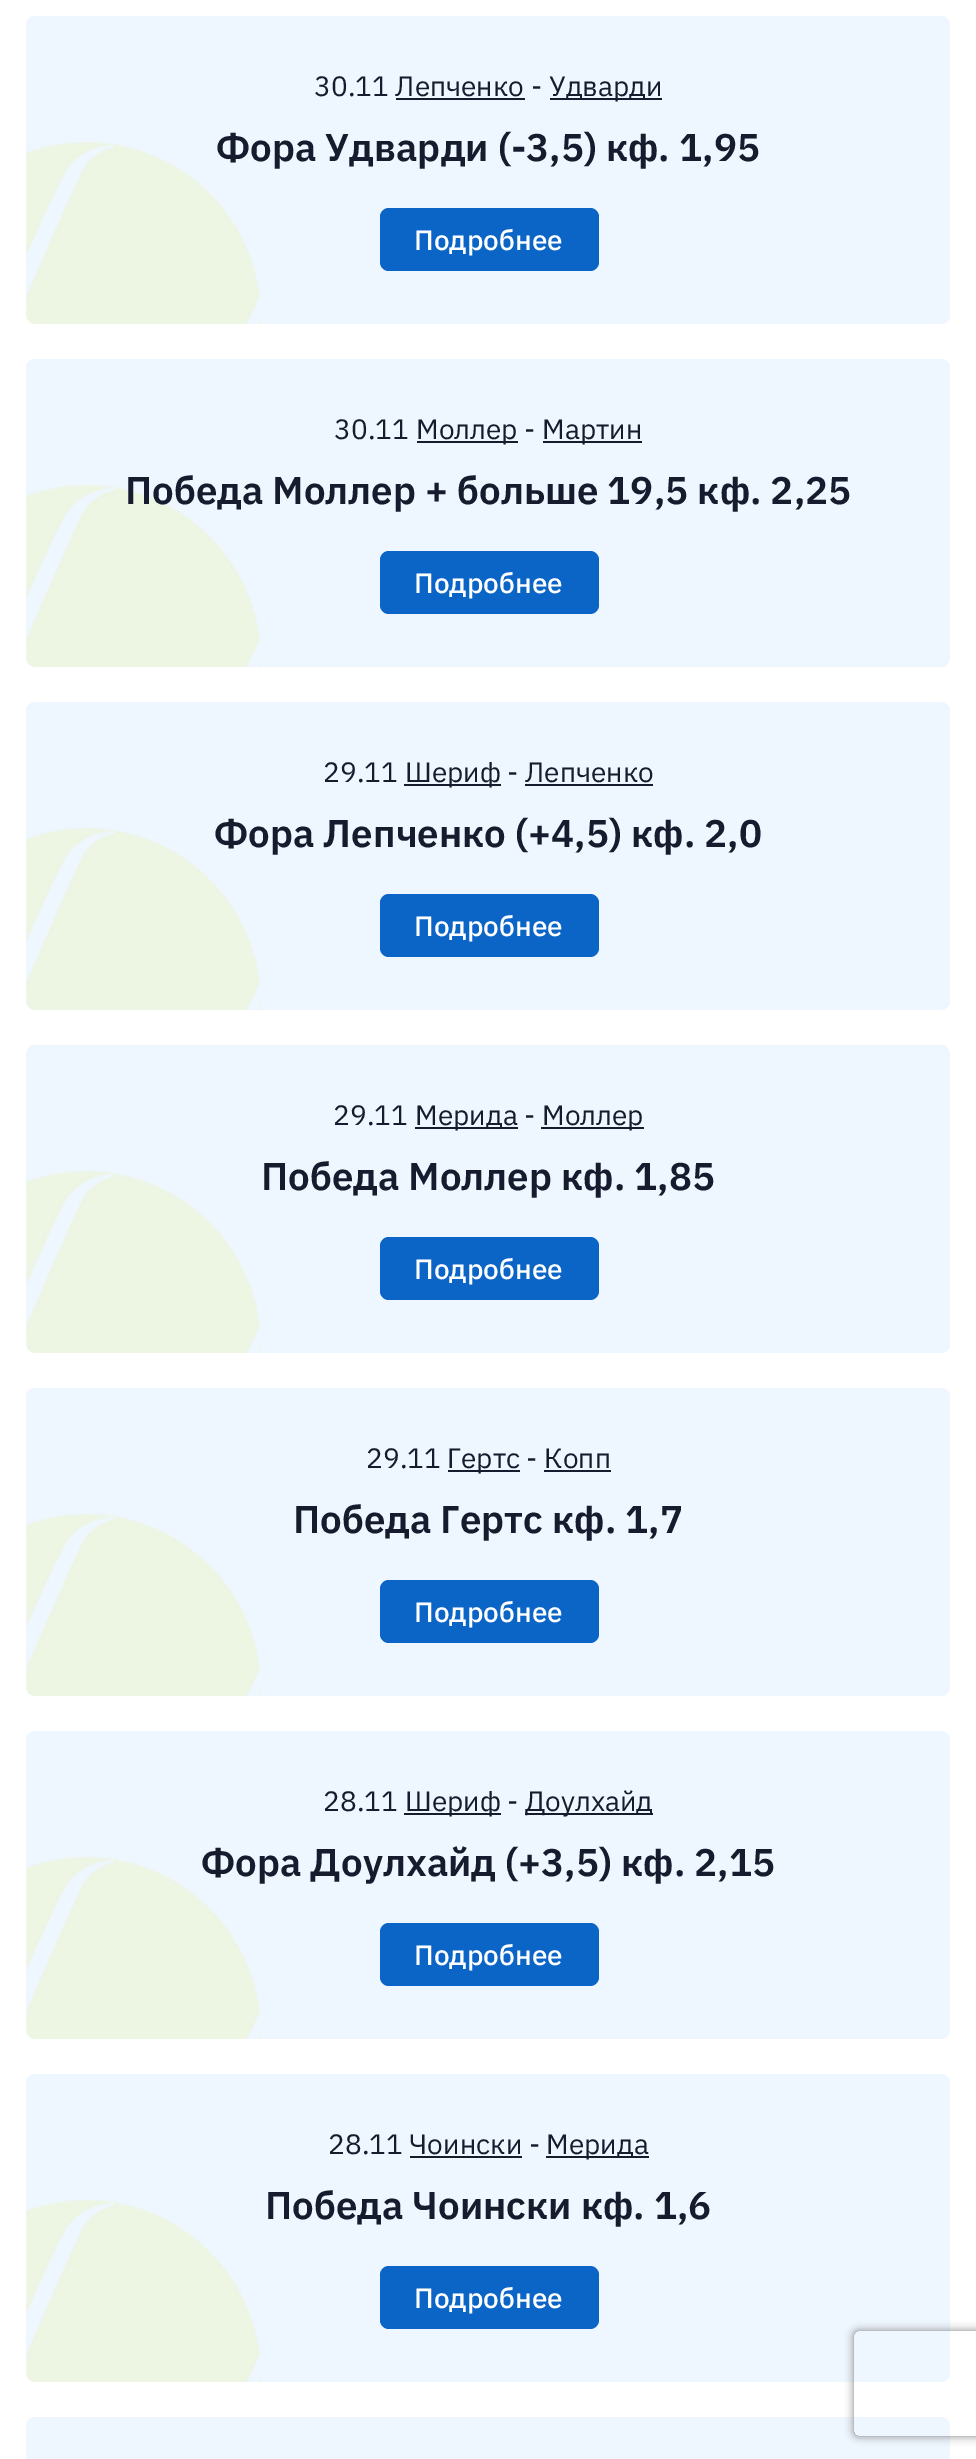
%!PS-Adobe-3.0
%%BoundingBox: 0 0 976 2459
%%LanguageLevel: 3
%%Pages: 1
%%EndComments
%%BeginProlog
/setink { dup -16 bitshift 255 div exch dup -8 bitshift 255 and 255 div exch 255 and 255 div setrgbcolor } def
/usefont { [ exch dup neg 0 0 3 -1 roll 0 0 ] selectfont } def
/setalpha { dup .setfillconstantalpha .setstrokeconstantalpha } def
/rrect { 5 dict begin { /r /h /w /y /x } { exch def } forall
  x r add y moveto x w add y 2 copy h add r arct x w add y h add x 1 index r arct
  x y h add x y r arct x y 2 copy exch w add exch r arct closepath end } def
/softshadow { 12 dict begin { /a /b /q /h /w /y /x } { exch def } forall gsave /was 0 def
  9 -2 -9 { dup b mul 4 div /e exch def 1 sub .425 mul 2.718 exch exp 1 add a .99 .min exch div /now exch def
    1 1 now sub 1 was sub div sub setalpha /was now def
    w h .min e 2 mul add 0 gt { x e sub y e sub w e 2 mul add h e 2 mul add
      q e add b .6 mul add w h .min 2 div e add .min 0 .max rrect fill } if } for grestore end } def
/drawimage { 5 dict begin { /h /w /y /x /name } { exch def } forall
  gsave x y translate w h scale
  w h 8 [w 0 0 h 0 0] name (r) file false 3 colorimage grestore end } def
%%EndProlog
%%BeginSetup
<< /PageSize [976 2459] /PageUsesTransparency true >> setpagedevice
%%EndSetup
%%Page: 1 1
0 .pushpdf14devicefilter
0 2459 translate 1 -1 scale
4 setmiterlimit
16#FFFFFF setink
0 0 976 2459 rectfill
16#EEF7FF setink
26 16 924 308 9 rrect fill
(img1.raw) 26 142 235 182 drawimage
/IBMPlexSans-Regular 28 usefont
16#161C2D setink
314 96 moveto (30.11 Лепченко -) show
550 98 112 2 rectfill
549 96 moveto (Удварди) show
396 98 129 2 rectfill
/IBMPlexSans-SemiBold 38.5 usefont
216 161 moveto (Фора Удварди \(-3,5\) кф. 1,95) show
16#0B65C6 setink
380 208 219 63 9 rrect fill
/IBMPlexSans-Medium 28 usefont
16#FFFFFF setink
414 250 moveto (Подробнее) show
16#EEF7FF setink
26 359 924 308 9 rrect fill
(img1.raw) 26 485 235 182 drawimage
/IBMPlexSans-Regular 28 usefont
16#161C2D setink
334 439 moveto (30.11) show
417 441 101 2 rectfill
416 439 moveto (Моллер -) show
543 441 99 2 rectfill
542 439 moveto (Мартин) show
/IBMPlexSans-SemiBold 38.5 usefont
125 504 moveto (Победа Моллер + больше 19,5 кф. 2,25) show
16#0B65C6 setink
380 551 219 63 9 rrect fill
/IBMPlexSans-Medium 28 usefont
16#FFFFFF setink
414 593 moveto (Подробнее) show
16#EEF7FF setink
26 702 924 308 9 rrect fill
(img1.raw) 26 828 235 182 drawimage
/IBMPlexSans-Regular 28 usefont
16#161C2D setink
323 782 moveto (29.11) show
404 784 97 2 rectfill
405 782 moveto (Шериф - Лепченко) show
525 784 128 2 rectfill
/IBMPlexSans-SemiBold 38.5 usefont
214 847 moveto (Фора Лепченко \(+4,5\) кф. 2,0) show
16#0B65C6 setink
380 894 219 63 9 rrect fill
/IBMPlexSans-Medium 28 usefont
16#FFFFFF setink
414 936 moveto (Подробнее) show
16#EEF7FF setink
26 1045 924 308 9 rrect fill
(img1.raw) 26 1171 235 182 drawimage
/IBMPlexSans-Regular 28 usefont
16#161C2D setink
333 1125 moveto (29.11) show
415 1127 103 2 rectfill
415 1125 moveto (Мерида -) show
541 1127 103 2 rectfill
542 1125 moveto (Моллер) show
/IBMPlexSans-SemiBold 38.5 usefont
261 1190 moveto (Победа Моллер кф. 1,85) show
16#0B65C6 setink
380 1237 219 63 9 rrect fill
/IBMPlexSans-Medium 28 usefont
16#FFFFFF setink
414 1279 moveto (Подробнее) show
16#EEF7FF setink
26 1388 924 308 9 rrect fill
(img2.raw) 26 1514 235 182 drawimage
/IBMPlexSans-Regular 28 usefont
16#161C2D setink
366 1468 moveto (29.11) show
448 1470 72 2 rectfill
447 1468 moveto (Гертс - Копп) show
544 1470 67 2 rectfill
/IBMPlexSans-SemiBold 38.5 usefont
293 1533 moveto (Победа Гертс кф. 1,7) show
16#0B65C6 setink
380 1580 219 63 9 rrect fill
/IBMPlexSans-Medium 28 usefont
16#FFFFFF setink
414 1622 moveto (Подробнее) show
16#EEF7FF setink
26 1731 924 308 9 rrect fill
(img1.raw) 26 1857 235 182 drawimage
/IBMPlexSans-Regular 28 usefont
16#161C2D setink
323 1811 moveto (28.11) show
404 1813 97 2 rectfill
405 1811 moveto (Шериф -) show
525 1813 128 2 rectfill
525 1811 moveto (Доулхайд) show
/IBMPlexSans-SemiBold 38.5 usefont
201 1876 moveto (Фора Доулхайд \(+3,5\) кф. 2,15) show
16#0B65C6 setink
380 1923 219 63 9 rrect fill
/IBMPlexSans-Medium 28 usefont
16#FFFFFF setink
414 1965 moveto (Подробнее) show
16#EEF7FF setink
26 2074 924 308 9 rrect fill
(img1.raw) 26 2200 235 182 drawimage
/IBMPlexSans-Regular 28 usefont
16#161C2D setink
328 2154 moveto (28.11 Чоински -) show
546 2156 103 2 rectfill
546 2154 moveto (Мерида) show
410 2156 112 2 rectfill
/IBMPlexSans-SemiBold 38.5 usefont
265 2219 moveto (Победа Чоински кф. 1,6) show
16#0B65C6 setink
380 2266 219 63 9 rrect fill
/IBMPlexSans-Medium 28 usefont
16#FFFFFF setink
414 2308 moveto (Подробнее) show
16#EEF7FF setink
26 2417 924 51 9 rrect fill
gsave
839 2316 moveto 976 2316 lineto 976 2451 lineto 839 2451 lineto closepath 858 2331 moveto 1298 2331 lineto 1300 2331 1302 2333 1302 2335 curveto 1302 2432 lineto 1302 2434 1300 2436 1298 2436 curveto 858 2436 lineto 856 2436 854 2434 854 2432 curveto 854 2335 lineto 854 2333 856 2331 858 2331 curveto closepath eoclip newpath
16#808080 setink
854 2331 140 105 4 4.5 1 softshadow
grestore
.poppdf14devicefilter showpage
%%EOF
